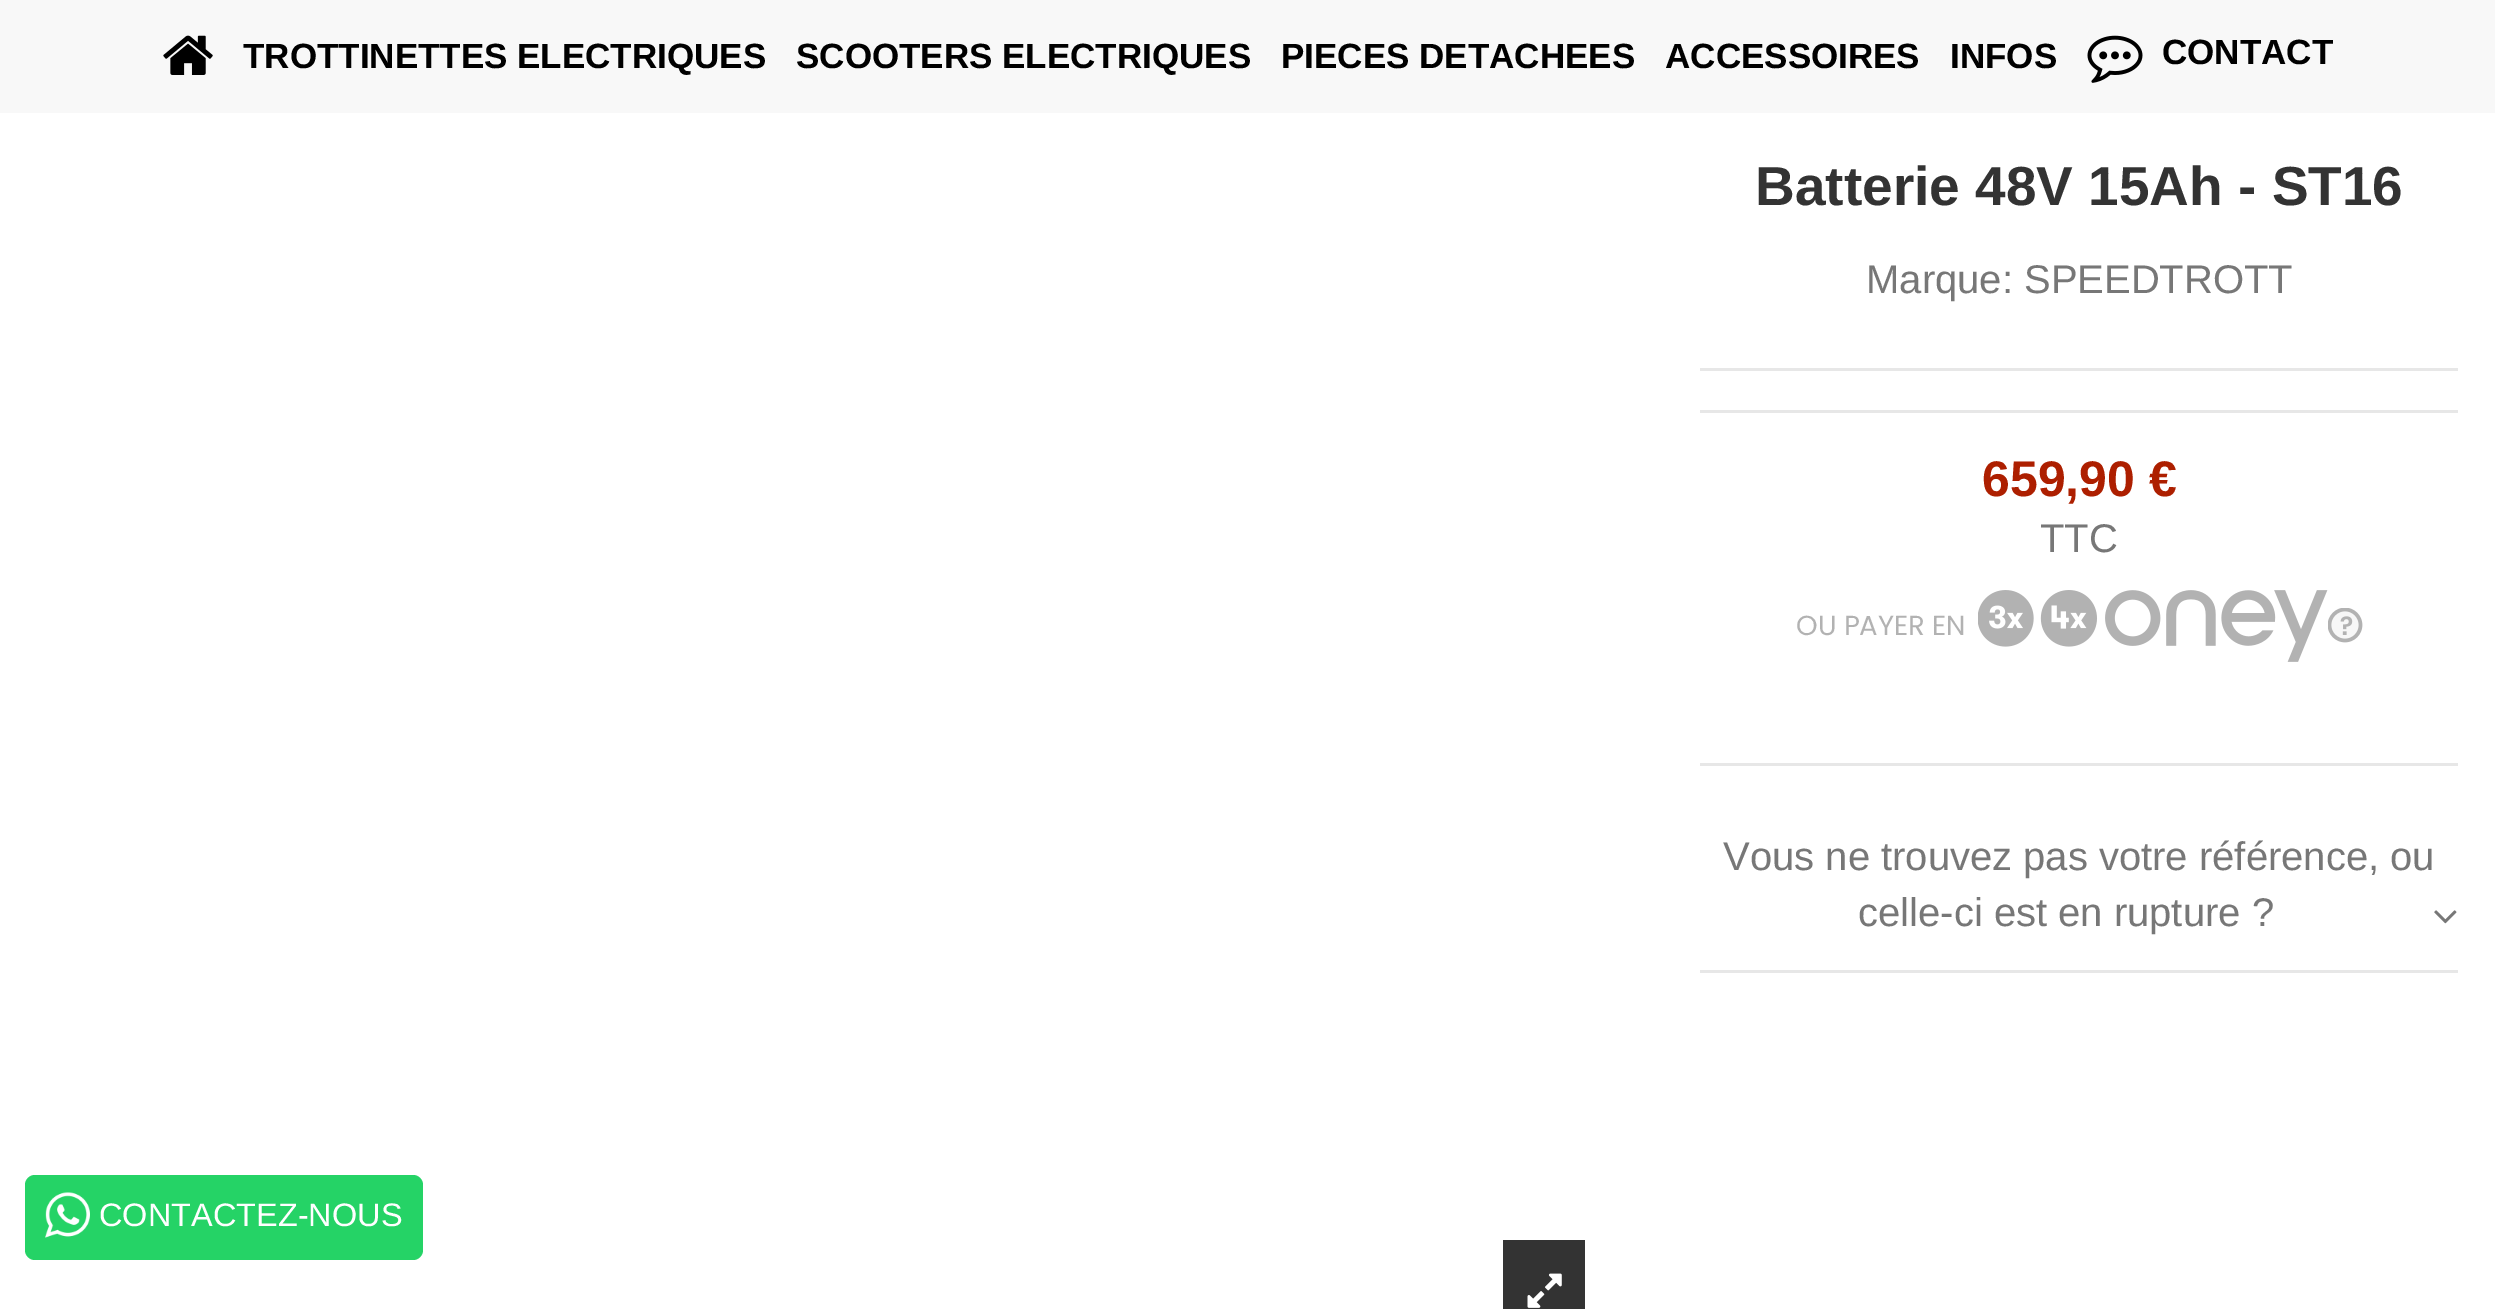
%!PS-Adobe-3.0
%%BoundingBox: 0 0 2495 1309
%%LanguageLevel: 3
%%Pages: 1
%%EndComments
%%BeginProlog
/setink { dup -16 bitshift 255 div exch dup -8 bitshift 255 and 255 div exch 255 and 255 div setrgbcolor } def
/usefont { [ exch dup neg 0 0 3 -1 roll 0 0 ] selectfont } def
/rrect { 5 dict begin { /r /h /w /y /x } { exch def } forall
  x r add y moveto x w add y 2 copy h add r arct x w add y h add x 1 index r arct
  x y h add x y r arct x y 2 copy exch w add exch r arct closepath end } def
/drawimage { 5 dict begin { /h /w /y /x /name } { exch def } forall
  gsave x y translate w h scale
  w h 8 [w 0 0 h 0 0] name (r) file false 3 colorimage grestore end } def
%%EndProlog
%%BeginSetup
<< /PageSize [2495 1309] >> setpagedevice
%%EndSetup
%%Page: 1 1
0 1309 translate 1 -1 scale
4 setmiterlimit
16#FFFFFF setink
0 0 2495 1309 rectfill
16#F8F8F8 setink
0 0 2495 113 rectfill
(img1.raw) 163 35 50 40 drawimage
/LiberationSans-Bold 35 usefont
16#000000 setink
[
    [(TROTTINETTES ELECTRIQUES) 243 68]
    [(SCOOTERS ELECTRIQUES) 796 68]
    [(PIECES DETACHEES) 1281 68]
    [(ACCESSOIRES) 1665 68]
    [(INFOS) 1950 68]
] { aload pop moveto show } forall
(img2.raw) 2087 35 56 48 drawimage
2162 64 moveto (CONTACT) show
16#E7E7E7 setink
1700 368 758 3 rectfill
/LiberationSans-Bold 55 usefont
16#333333 setink
1755 205 moveto (Batterie 48V 15Ah - ST16) show
/LiberationSans-Regular 40 usefont
16#777777 setink
1866 293 moveto (Marque: SPEEDTROTT) show
16#E7E7E7 setink
1700 410 758 3 rectfill
/LiberationSans-Bold 50 usefont
16#AD1F00 setink
1982 496 moveto (659,90 €) show
/LiberationSans-Regular 40 usefont
16#777777 setink
2040 552 moveto (TTC) show
/Poppins-Regular 27.5 usefont
16#B2B2B2 setink
1796 635 moveto (OU PAYER EN) show
(img3.raw) 1978 590 350 72 drawimage
(img4.raw) 2328 608 35 35 drawimage
16#E7E7E7 setink
1700 763 758 3 rectfill
1700 970 758 3 rectfill
/LiberationSans-Regular 40 usefont
16#777777 setink
1723 870 moveto (Vous ne trouvez pas votre référence, ou) show
1858 926 moveto (celle-ci est en rupture ?) show
(img5.raw) 2434 910 23 14 drawimage
16#333333 setink
1503 1240 82 69 rectfill
(img6.raw) 1527 1273 35 35 drawimage
16#25D366 setink
25 1175 398 85 10 rrect fill
(img7.raw) 45 1192 45 46 drawimage
/LiberationSans-Regular 32.5 usefont
16#FFFFFF setink
99 1226 moveto (CONTACTEZ-NOUS) show
showpage
%%EOF
